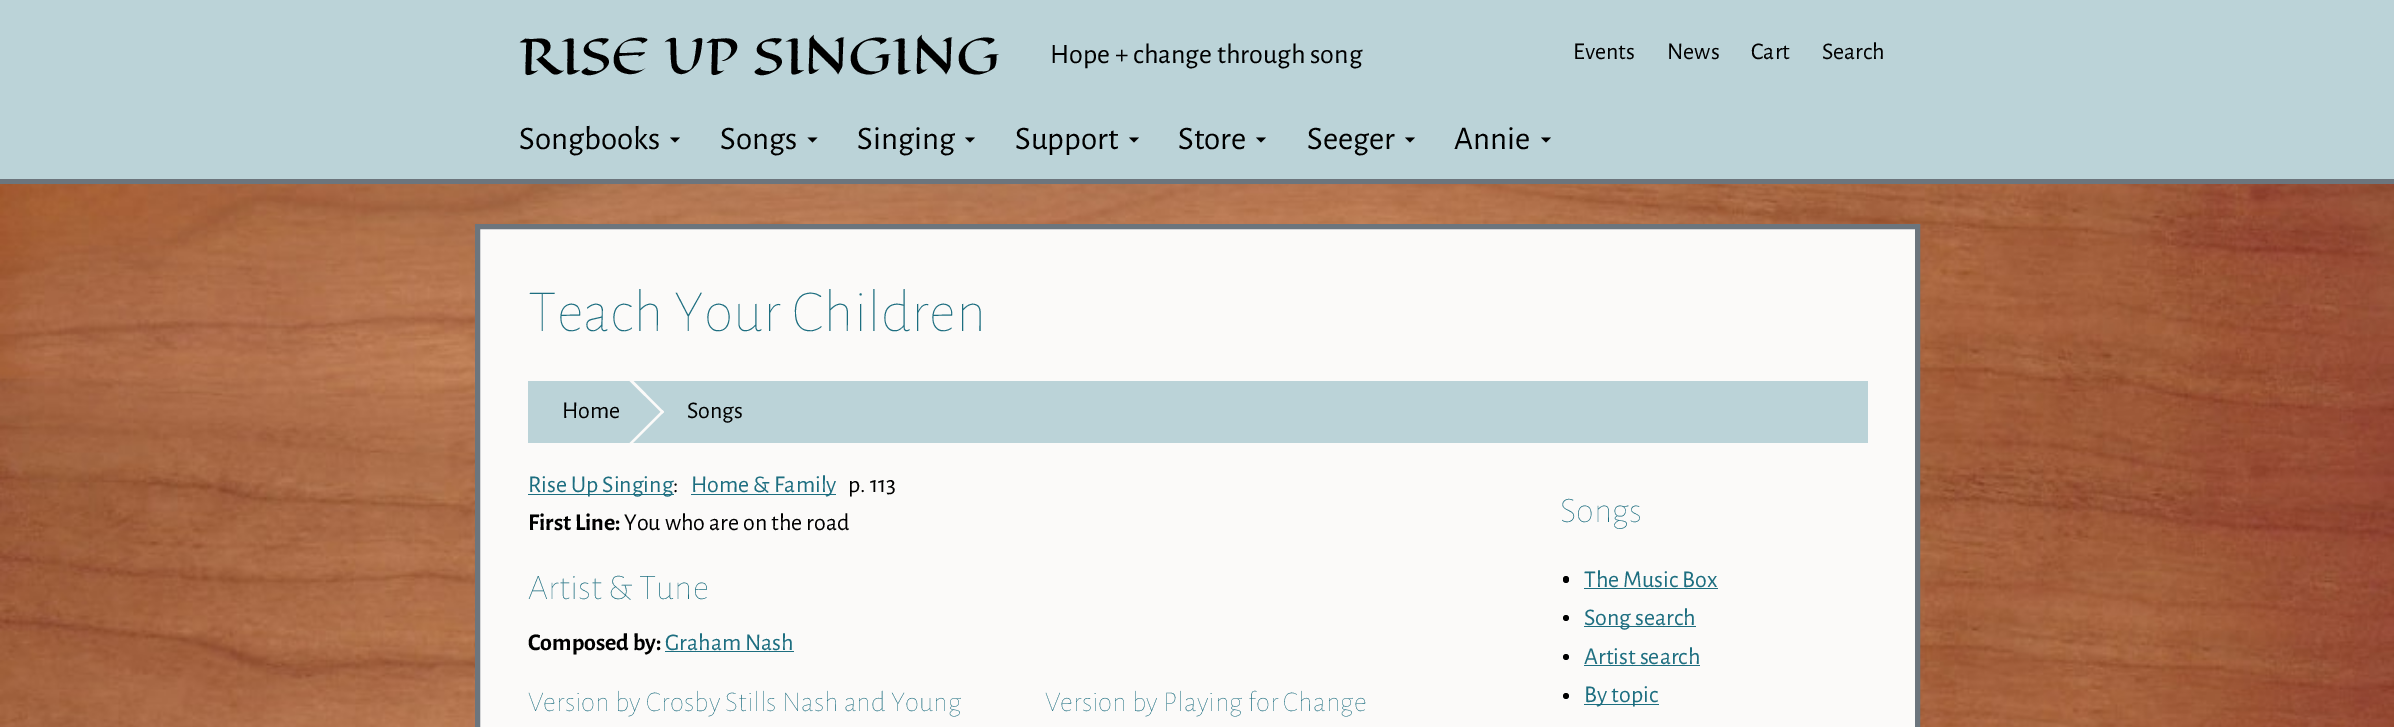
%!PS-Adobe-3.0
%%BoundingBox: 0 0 2394 727
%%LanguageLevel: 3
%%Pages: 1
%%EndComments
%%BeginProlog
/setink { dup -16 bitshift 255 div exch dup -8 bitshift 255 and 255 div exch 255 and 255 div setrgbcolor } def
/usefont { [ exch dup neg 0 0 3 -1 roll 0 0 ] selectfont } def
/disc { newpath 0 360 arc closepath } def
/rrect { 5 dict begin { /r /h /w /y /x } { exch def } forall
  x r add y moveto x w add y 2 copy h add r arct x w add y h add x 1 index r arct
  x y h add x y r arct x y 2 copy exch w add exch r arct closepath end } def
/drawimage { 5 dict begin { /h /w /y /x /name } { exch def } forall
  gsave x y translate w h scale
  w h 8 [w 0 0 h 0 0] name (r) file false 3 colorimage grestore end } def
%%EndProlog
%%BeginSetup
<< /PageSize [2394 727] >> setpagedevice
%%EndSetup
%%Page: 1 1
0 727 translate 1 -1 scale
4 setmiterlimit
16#FFFFFF setink
0 0 2394 727 rectfill
(img1.raw) 0 184 2394 543 drawimage
16#BBD3D8 setink
0 0 2394 179 rectfill
16#6C757D setink
0 179 2394 5 rectfill
/EagleLake-Regular 48 usefont
16#000000 setink
519 73 moveto (RISE UP SINGING) show
/AlegreyaSans-Regular 28 usefont
1050 63 moveto (Hope + change through song) show
/AlegreyaSans-Regular 24 usefont
[
    [(Events) 1573 59]
    [(News) 1667 59]
    [(Cart) 1751 59]
    [(Search) 1822 59]
] { aload pop moveto show } forall
/AlegreyaSans-Regular 33 usefont
519 149 moveto (Songbooks) show
670 137.5 moveto 680 137.5 lineto 675 142.5 lineto closepath fill
720 149 moveto (Songs) show
807.5 137.5 moveto 817.5 137.5 lineto 812.5 142.5 lineto closepath fill
857 149 moveto (Singing) show
965 137.5 moveto 975 137.5 lineto 970 142.5 lineto closepath fill
1015 149 moveto (Support) show
1129 137.5 moveto 1139 137.5 lineto 1134 142.5 lineto closepath fill
1178 149 moveto (Store) show
1256 137.5 moveto 1266 137.5 lineto 1261 142.5 lineto closepath fill
1307 149 moveto (Seeger) show
1405 137.5 moveto 1415 137.5 lineto 1410 142.5 lineto closepath fill
1454 149 moveto (Annie) show
1541 137.5 moveto 1551 137.5 lineto 1546 142.5 lineto closepath fill
16#FBFAF9 setink
477.5 226.5 moveto 1917.5 226.5 lineto 1917.5 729.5 lineto 477.5 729.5 lineto closepath gsave fill grestore
16#6C757D setink
5 setlinewidth
stroke
/AlegreyaSans-ExtraLight 60 usefont
16#1D6E80 setink
528 331 moveto (Teach Your Children) show
16#BBD3D8 setink
528 381 1340 62 rectfill
/AlegreyaSans-Regular 24 usefont
16#000000 setink
562 418 moveto (Home) show
gsave
528 381 1340 62 rectclip
16#FBFAF9 setink
628.5 376 moveto 664 412 lineto 662.5 413.5 lineto 626.5 378 lineto closepath fill
662.5 410 moveto 664 412 lineto 628.5 447.5 lineto 626.5 446 lineto closepath fill
grestore
687 418 moveto (Songs) show
16#1D6E80 setink
528 494 146 1 rectfill
528 492 moveto (Rise Up Singing) show
16#000000 setink
673 492 moveto (:) show
16#1D6E80 setink
691 494 145 1 rectfill
691 492 moveto (Home & Family) show
16#000000 setink
848 492 moveto (p. 113) show
/AlegreyaSans-Bold 24 usefont
528 530 moveto (First Line:) show
/AlegreyaSans-Regular 24 usefont
624 530 moveto (You who are on the road) show
/AlegreyaSans-ExtraLight 36.25 usefont
16#1D6E80 setink
528 599 moveto (Artist & Tune) show
/AlegreyaSans-Bold 24 usefont
16#000000 setink
528 650 moveto (Composed by:) show
/AlegreyaSans-Regular 24 usefont
16#1D6E80 setink
665 650 moveto (Graham Nash) show
665 651 129 1 rectfill
/AlegreyaSans-ExtraLight 28.75 usefont
528 711 moveto (Version by Crosby Stills Nash and Young) show
1045 711 moveto (Version by Playing for Change) show
/AlegreyaSans-ExtraLight 36.25 usefont
1560 522 moveto (Songs) show
16#000001 setink
1563 576 6 7 3 rrect fill
/AlegreyaSans-Regular 24 usefont
16#1D6E80 setink
1584 587 moveto (The Music Box) show
1584 588 134 1 rectfill
16#000001 setink
1566 618 3 disc fill
16#1D6E80 setink
1584 626 112 1 rectfill
1584 625 moveto (Song search) show
16#000001 setink
1566 657 3 disc fill
16#1D6E80 setink
1584 664 moveto (Artist search) show
1584 665 116 1 rectfill
16#000001 setink
1566 696 3 disc fill
16#1D6E80 setink
1584 704 75 1 rectfill
1584 702 moveto (By topic) show
showpage
%%EOF
